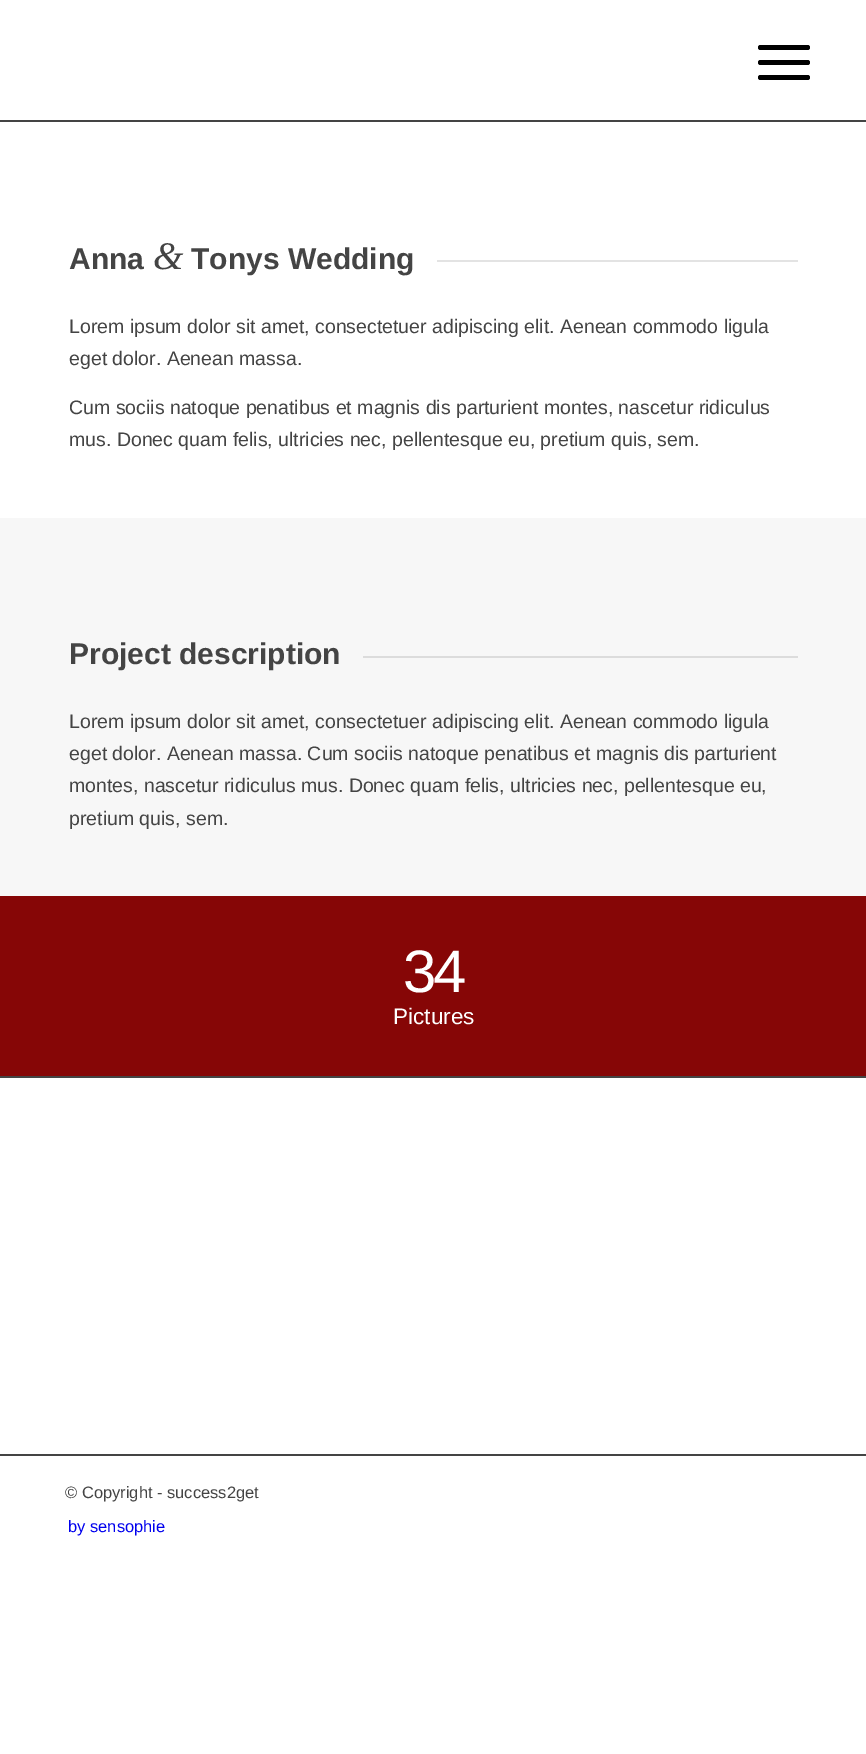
%!PS-Adobe-3.0
%%BoundingBox: 0 0 866 1754
%%LanguageLevel: 3
%%Pages: 1
%%EndComments
%%BeginProlog
/setink { dup -16 bitshift 255 div exch dup -8 bitshift 255 and 255 div exch 255 and 255 div setrgbcolor } def
/usefont { [ exch dup neg 0 0 3 -1 roll 0 0 ] selectfont } def
/rrect { 5 dict begin { /r /h /w /y /x } { exch def } forall
  x r add y moveto x w add y 2 copy h add r arct x w add y h add x 1 index r arct
  x y h add x y r arct x y 2 copy exch w add exch r arct closepath end } def
%%EndProlog
%%BeginSetup
<< /PageSize [866 1754] >> setpagedevice
%%EndSetup
%%Page: 1 1
0 1754 translate 1 -1 scale
4 setmiterlimit
16#FFFFFF setink
0 0 866 1754 rectfill
16#444444 setink
0 120 866 2 rectfill
16#000000 setink
758 60 52 5 2.5 rrect fill
758 45 52 5 2.5 rrect fill
758 75 52 5 2.5 rrect fill
/LiberationSans-Bold 30 usefont
16#444444 setink
69 269 moveto (Anna) show
/LiberationSerif-Italic 39 usefont
153 269 moveto (&) show
/LiberationSans-Bold 30 usefont
191 269 moveto (Tonys Wedding) show
16#E3E3E3 setink
437 260 361 2 rectfill
/LiberationSans-Regular 19.5 usefont
16#444444 setink
[
    [(Lorem ipsum dolor sit amet, consectetuer adipiscing elit. Aenean commodo ligula) 69 333]
    [(eget dolor. Aenean massa.) 69 365]
    [(Cum sociis natoque penatibus et magnis dis parturient montes, nascetur ridiculus) 69 414]
    [(mus. Donec quam felis, ultricies nec, pellentesque eu, pretium quis, sem.) 69 446]
] { aload pop moveto show } forall
16#F7F7F7 setink
0 518 866 378 rectfill
/LiberationSans-Bold 30 usefont
16#444444 setink
69 664 moveto (Project description) show
16#DCDCDC setink
363 656 435 2 rectfill
/LiberationSans-Regular 19.5 usefont
16#444444 setink
[
    [(Lorem ipsum dolor sit amet, consectetuer adipiscing elit. Aenean commodo ligula) 69 728]
    [(eget dolor. Aenean massa. Cum sociis natoque penatibus et magnis dis parturient) 69 760]
    [(montes, nascetur ridiculus mus. Donec quam felis, ultricies nec, pellentesque eu,) 69 792]
    [(pretium quis, sem.) 69 825]
] { aload pop moveto show } forall
16#860606 setink
0 896 866 180 rectfill
/LiberationSans-Regular 60 usefont
16#FFFFFF setink
403 992 moveto -3 0 (34) ashow
/LiberationSans-Regular 22.5 usefont
393 1024 moveto (Pictures) show
16#444444 setink
0 1076 866 2 rectfill
0 1454 866 2 rectfill
/LiberationSans-Regular 16.5 usefont
65 1498 moveto (© Copyright - success2get) show
16#0000EE setink
68 1532 moveto (by sensophie) show
showpage
%%EOF
